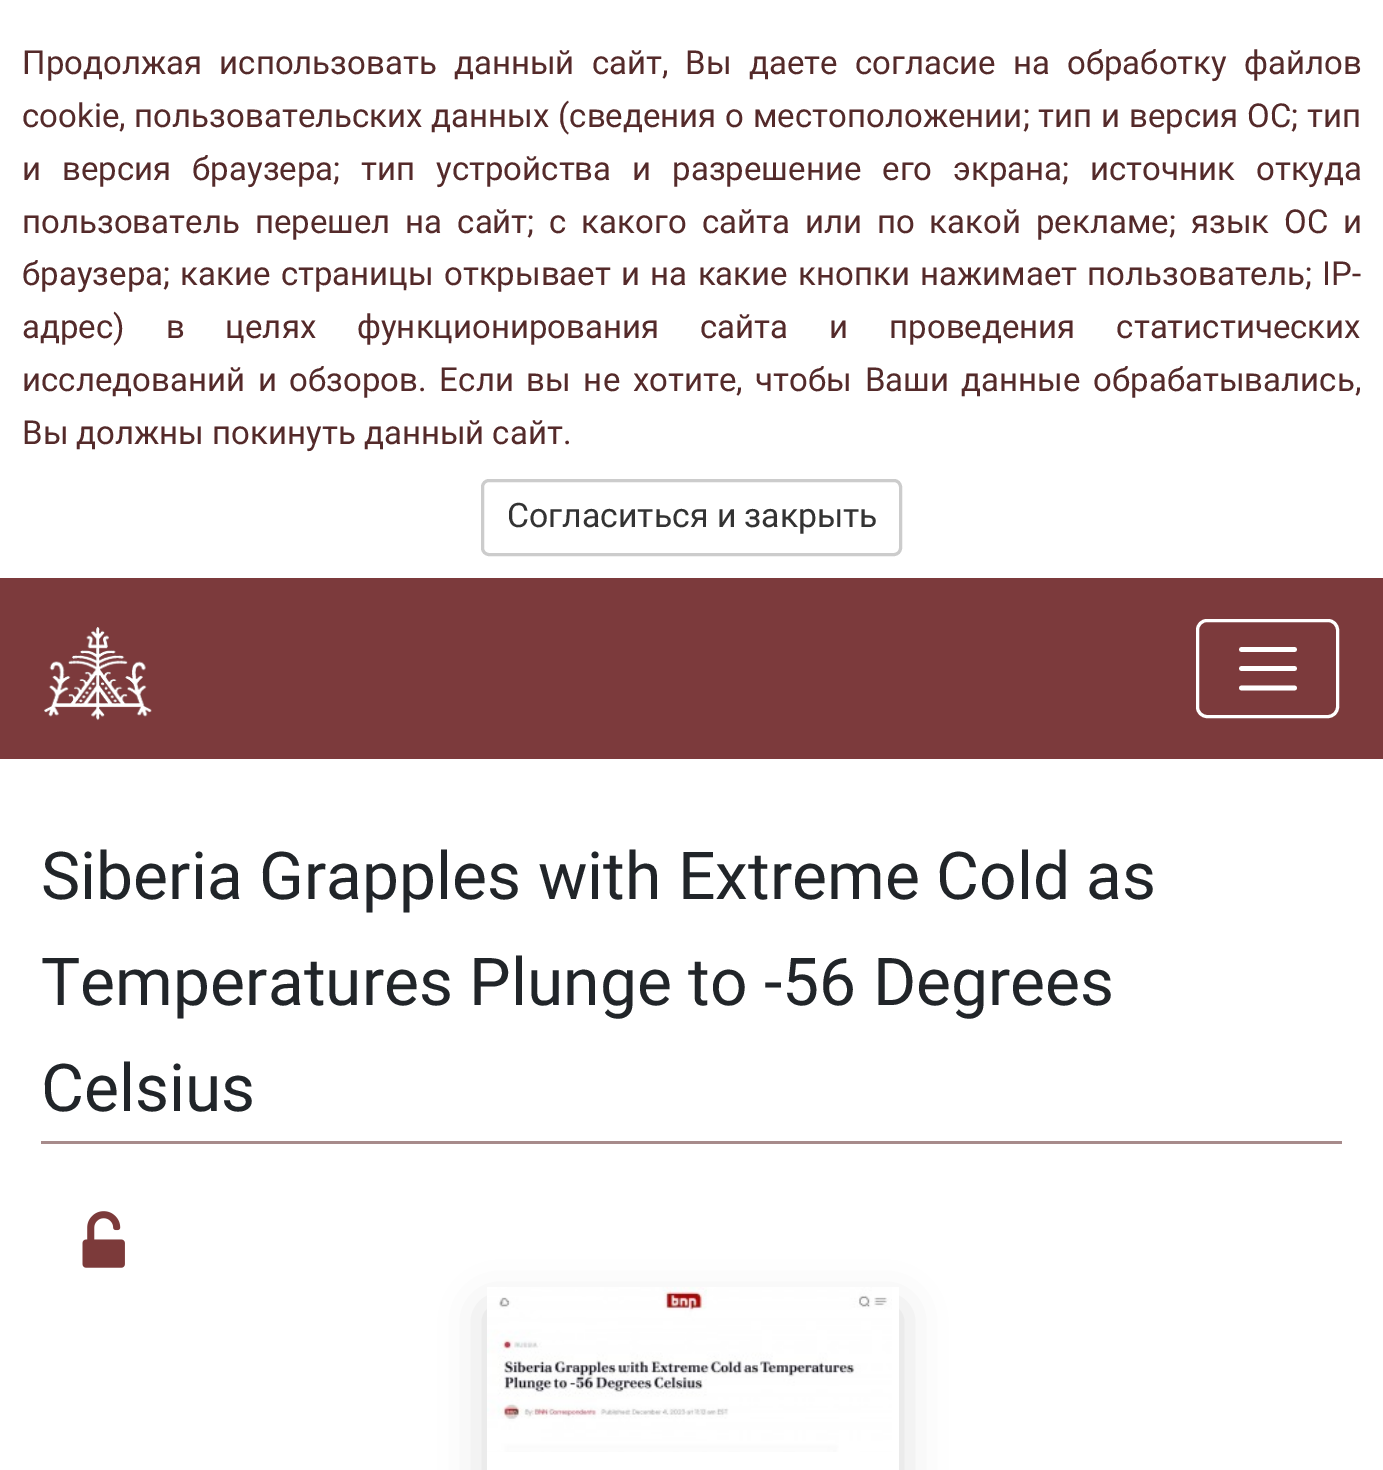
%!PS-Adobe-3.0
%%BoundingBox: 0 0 1383 1470
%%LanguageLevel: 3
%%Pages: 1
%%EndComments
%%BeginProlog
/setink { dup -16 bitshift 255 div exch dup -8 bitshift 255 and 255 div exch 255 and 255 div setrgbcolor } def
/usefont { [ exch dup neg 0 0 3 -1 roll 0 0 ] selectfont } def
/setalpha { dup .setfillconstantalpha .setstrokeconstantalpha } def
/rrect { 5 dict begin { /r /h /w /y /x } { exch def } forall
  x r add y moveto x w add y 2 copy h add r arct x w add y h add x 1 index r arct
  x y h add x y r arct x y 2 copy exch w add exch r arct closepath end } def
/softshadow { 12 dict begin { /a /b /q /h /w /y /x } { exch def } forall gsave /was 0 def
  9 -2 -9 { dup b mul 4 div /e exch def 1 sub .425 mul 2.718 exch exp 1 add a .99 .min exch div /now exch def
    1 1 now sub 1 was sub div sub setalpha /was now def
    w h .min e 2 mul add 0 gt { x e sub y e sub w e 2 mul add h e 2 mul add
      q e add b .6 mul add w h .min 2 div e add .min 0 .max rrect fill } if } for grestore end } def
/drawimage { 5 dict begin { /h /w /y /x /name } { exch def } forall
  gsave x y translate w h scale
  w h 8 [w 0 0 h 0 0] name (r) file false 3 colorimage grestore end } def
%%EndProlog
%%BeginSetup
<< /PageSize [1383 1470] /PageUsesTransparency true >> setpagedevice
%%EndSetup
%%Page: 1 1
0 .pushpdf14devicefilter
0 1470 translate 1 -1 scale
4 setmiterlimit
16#FFFFFF setink
0 0 1383 1470 rectfill
/Roboto-Regular 33 usefont
16#542A2A setink
22 74 moveto 9 0 32 (Продолжая использовать данный сайт, Вы даете согласие на обработку файлов) widthshow
22 127 moveto 0.6 0 32 (cookie, пользовательских данных \(сведения о местоположении; тип и версия ОС; тип) widthshow
22 180 moveto 12.75 0 32 (и версия браузера; тип устройства и разрешение его экрана; источник откуда) widthshow
22 233 moveto 6.75 0 32 (пользователь перешел на сайт; с какого сайта или по какой рекламе; язык ОС и) widthshow
22 285 moveto 2.1 0 32 (браузера; какие страницы открывает и на какие кнопки нажимает пользователь; IP-) widthshow
22 338 moveto 32.75 0 32 (адрес\) в целях функционирования сайта и проведения статистических) widthshow
22 391 moveto 4.5 0 32 (исследований и обзоров. Если вы не хотите, чтобы Ваши данные обрабатывались,) widthshow
22 444 moveto (Вы должны покинуть данный сайт.) show
16#CCCCCC setink
3 setlinewidth
482.5 480.5 418 74 6.5 rrect stroke
/Roboto-Regular 33.75 usefont
16#333333 setink
507 527 moveto (Согласиться и закрыть) show
16#7C3A3C setink
0 578 1383 181 rectfill
(img1.raw) 44 627 108 94 drawimage
16#FFFFFF setink
1197.5 620.5 140 96 9.5 rrect stroke
4.8 setlinewidth
1 setlinecap
1241.5 649.5 moveto 1294.5 649.5 lineto 1241.5 668.5 moveto 1294.5 668.5 lineto 1241.5 688 moveto 1294.5 688 lineto stroke
16#A78B8B setink
41 1141 1301 3 rectfill
/Roboto-Regular 66 usefont
16#212529 setink
[
    [(Siberia Grapples with Extreme Cold as) 41 899]
    [(Temperatures Plunge to -56 Degrees) 41 1005]
    [(Celsius) 41 1111]
] { aload pop moveto show } forall
(img2.raw) 82 1211 43 57 drawimage
gsave
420 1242 moveto 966 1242 lineto 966 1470 lineto 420 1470 lineto closepath 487 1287 moveto 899 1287 lineto 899 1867 lineto 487 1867 lineto closepath eoclip newpath
16#000000 setink
487 1309 412 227 0 22 0.15 softshadow
grestore
(img3.raw) 487 1287 405 165 drawimage
.poppdf14devicefilter showpage
%%EOF
